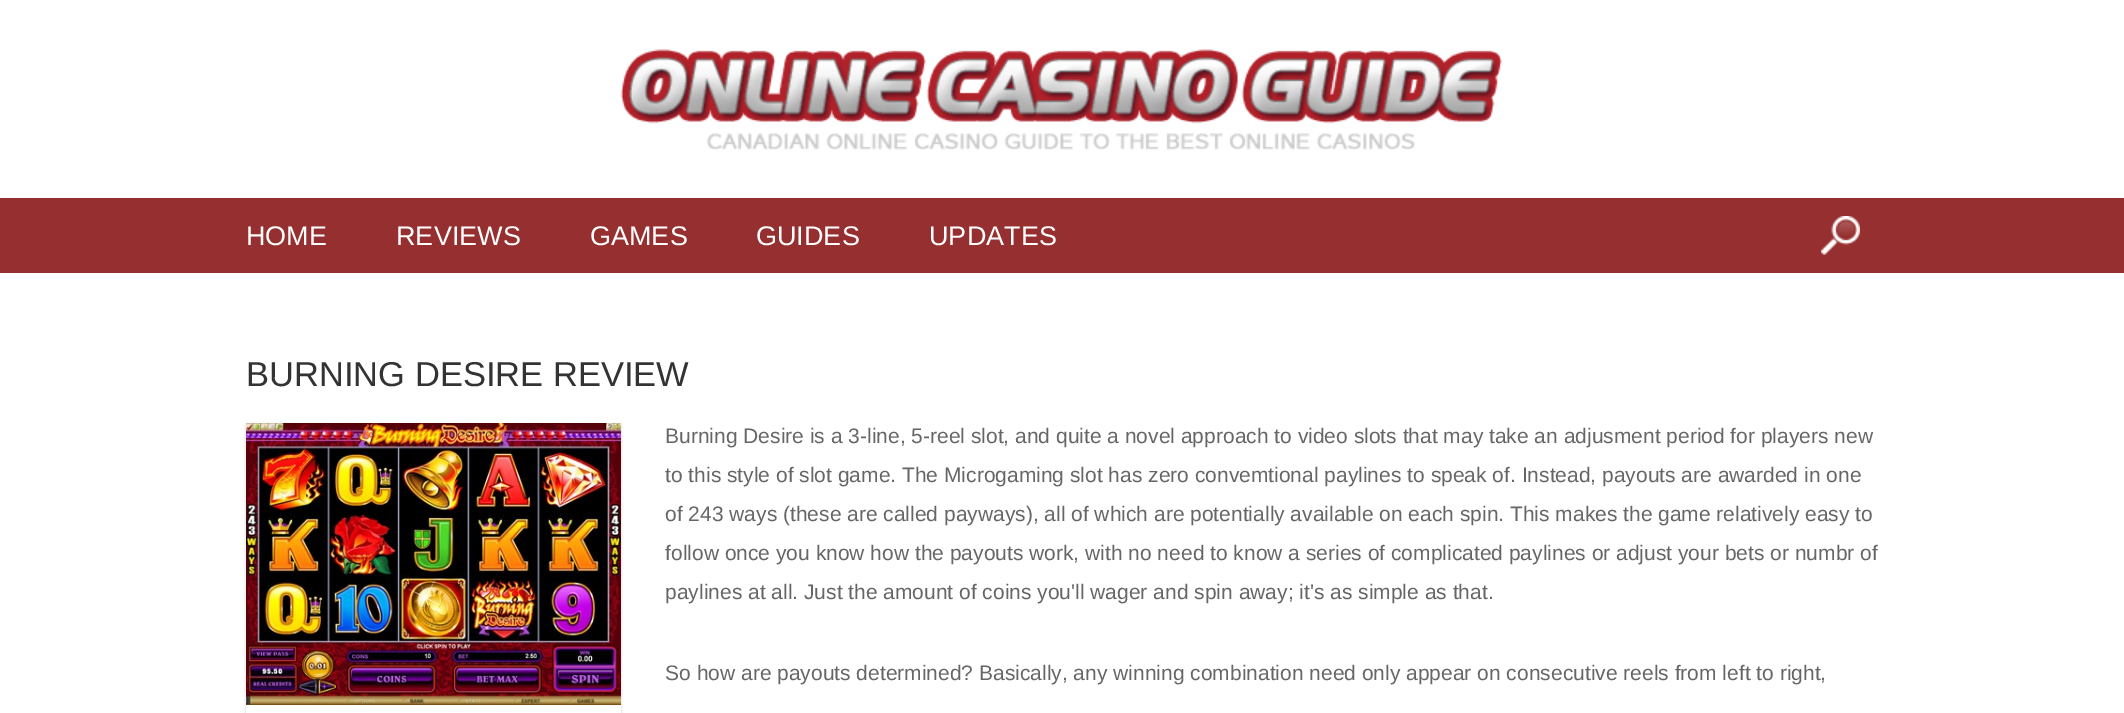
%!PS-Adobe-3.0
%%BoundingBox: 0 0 2124 713
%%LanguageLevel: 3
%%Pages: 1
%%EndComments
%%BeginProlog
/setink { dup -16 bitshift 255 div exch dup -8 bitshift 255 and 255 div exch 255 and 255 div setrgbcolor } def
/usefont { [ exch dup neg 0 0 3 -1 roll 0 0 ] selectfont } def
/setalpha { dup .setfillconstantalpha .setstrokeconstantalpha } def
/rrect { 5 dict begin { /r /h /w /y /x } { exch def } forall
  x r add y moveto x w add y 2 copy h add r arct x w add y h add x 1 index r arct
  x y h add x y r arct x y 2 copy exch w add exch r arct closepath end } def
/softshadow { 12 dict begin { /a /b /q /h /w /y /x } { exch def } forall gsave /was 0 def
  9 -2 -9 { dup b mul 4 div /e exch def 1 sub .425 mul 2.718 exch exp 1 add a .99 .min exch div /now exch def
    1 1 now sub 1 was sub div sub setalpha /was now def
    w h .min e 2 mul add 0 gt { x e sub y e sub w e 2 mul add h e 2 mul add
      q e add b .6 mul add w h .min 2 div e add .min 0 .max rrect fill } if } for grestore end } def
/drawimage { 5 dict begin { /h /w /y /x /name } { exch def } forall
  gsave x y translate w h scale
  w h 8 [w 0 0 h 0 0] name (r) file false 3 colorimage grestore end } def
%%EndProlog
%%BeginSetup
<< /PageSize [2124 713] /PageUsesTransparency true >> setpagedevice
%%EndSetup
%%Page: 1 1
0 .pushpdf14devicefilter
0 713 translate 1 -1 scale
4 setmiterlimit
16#FFFFFF setink
0 0 2124 713 rectfill
(img1.raw) 620 49 882 101 drawimage
16#962F2F setink
0 198 2124 75 rectfill
/LiberationSans-Regular 27 usefont
16#FFFFFF setink
[
    [(HOME) 246 245]
    [(REVIEWS) 396 245]
    [(GAMES) 590 245]
    [(GUIDES) 756 245]
    [(UPDATES) 929 245]
] { aload pop moveto show } forall
(img2.raw) 1821 216 39 39 drawimage
/LiberationSans-Regular 34.5 usefont
16#333333 setink
246 386 moveto (BURNING DESIRE REVIEW) show
gsave
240 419 moveto 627 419 lineto 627 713 lineto 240 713 lineto closepath 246 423 moveto 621 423 lineto 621 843 lineto 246 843 lineto closepath eoclip newpath
16#D6D6D6 setink
246 425 375 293 0 1.5 1 softshadow
grestore
(img3.raw) 246 423 375 282 drawimage
/LiberationSans-Regular 21 usefont
16#666666 setink
[
    [(Burning Desire is a 3-line, 5-reel slot, and quite a novel approach to video slots that may take an adjusment period for players new) 665 443]
    [(to this style of slot game. The Microgaming slot has zero convemtional paylines to speak of. Instead, payouts are awarded in one) 665 482]
    [(of 243 ways \(these are called payways\), all of which are potentially available on each spin. This makes the game relatively easy to) 665 521]
    [(follow once you know how the payouts work, with no need to know a series of complicated paylines or adjust your bets or numbr of) 665 560]
    [(paylines at all. Just the amount of coins you'll wager and spin away; it's as simple as that.) 665 599]
    [(So how are payouts determined? Basically, any winning combination need only appear on consecutive reels from left to right,) 665 680]
] { aload pop moveto show } forall
.poppdf14devicefilter showpage
%%EOF
